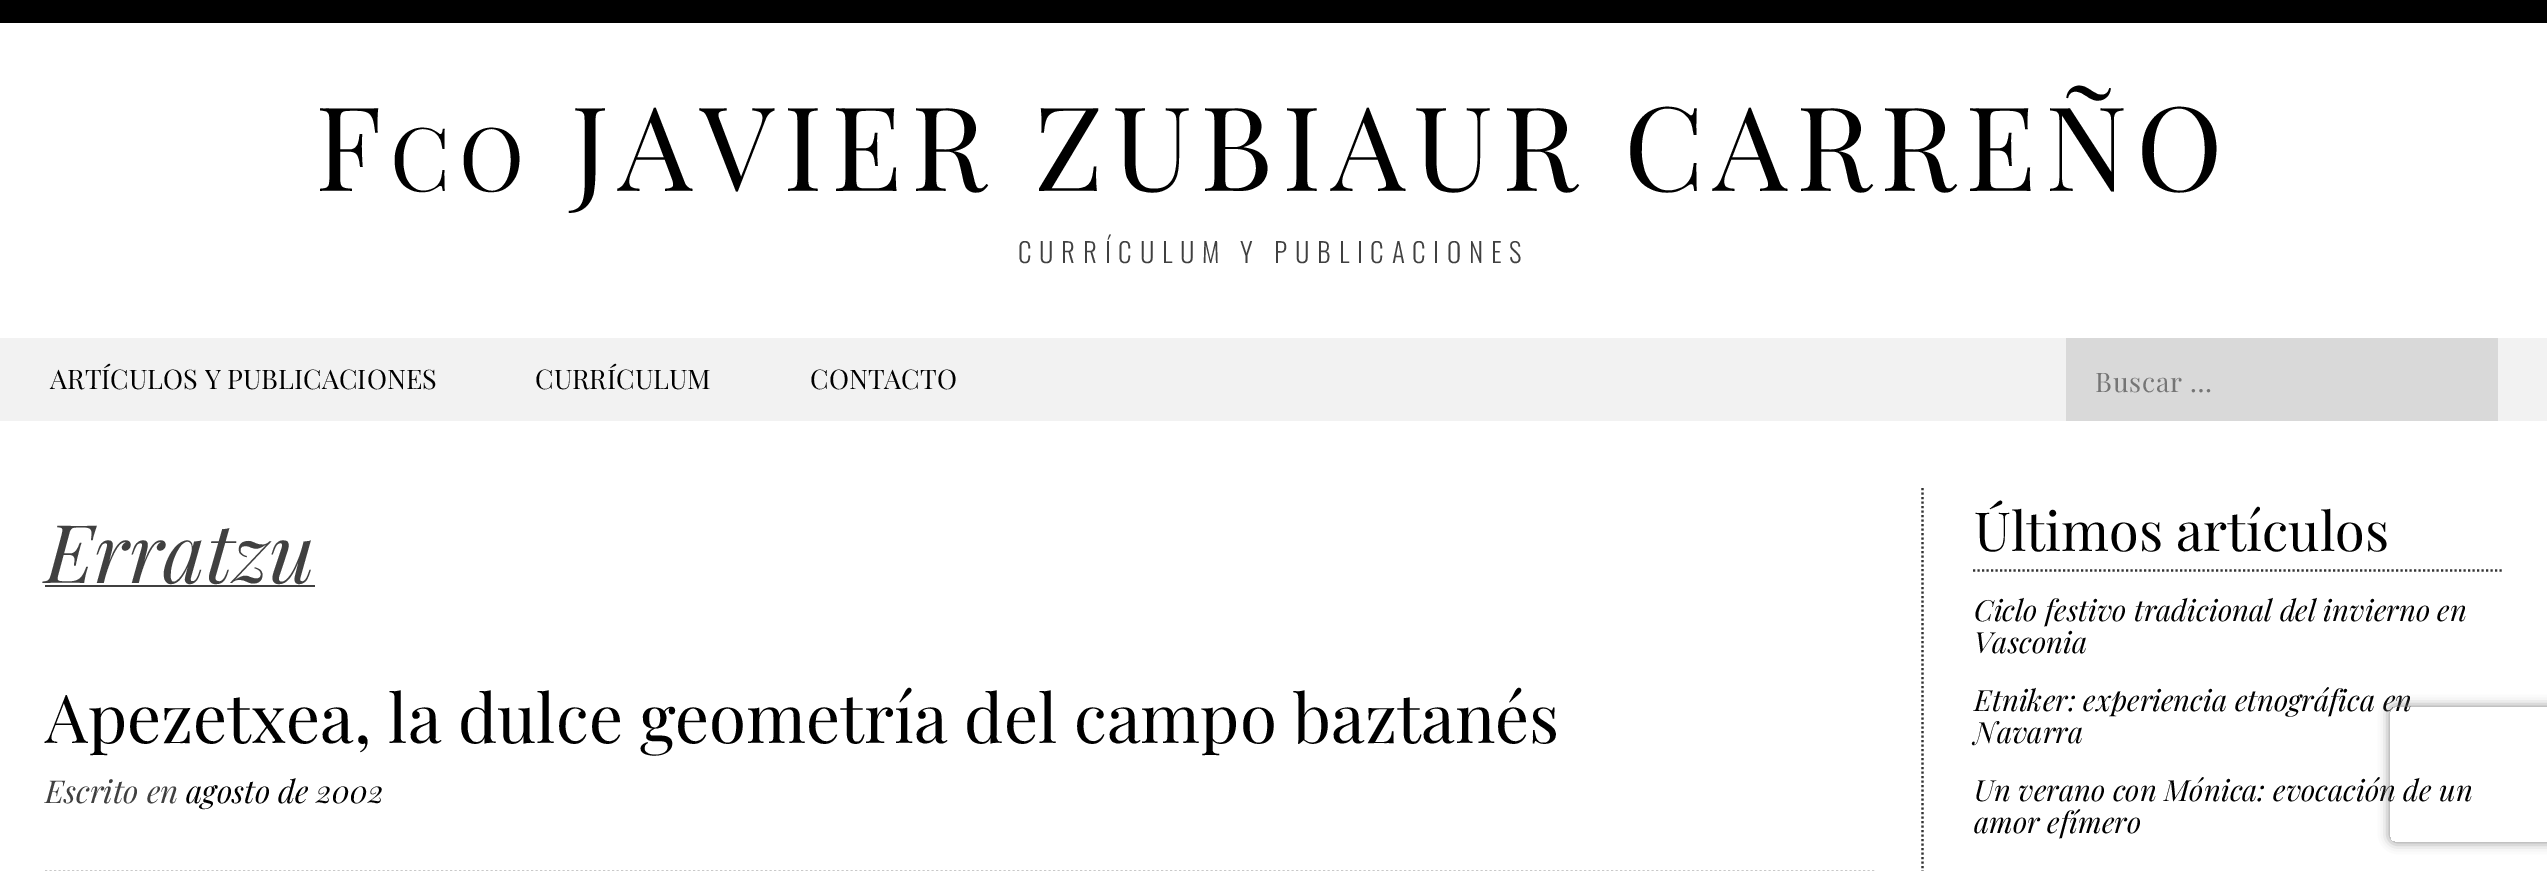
%!PS-Adobe-3.0
%%BoundingBox: 0 0 2547 871
%%LanguageLevel: 3
%%Pages: 1
%%EndComments
%%BeginProlog
/setink { dup -16 bitshift 255 div exch dup -8 bitshift 255 and 255 div exch 255 and 255 div setrgbcolor } def
/usefont { [ exch dup neg 0 0 3 -1 roll 0 0 ] selectfont } def
/setalpha { dup .setfillconstantalpha .setstrokeconstantalpha } def
/rrect { 5 dict begin { /r /h /w /y /x } { exch def } forall
  x r add y moveto x w add y 2 copy h add r arct x w add y h add x 1 index r arct
  x y h add x y r arct x y 2 copy exch w add exch r arct closepath end } def
/softshadow { 12 dict begin { /a /b /q /h /w /y /x } { exch def } forall gsave /was 0 def
  9 -2 -9 { dup b mul 4 div /e exch def 1 sub .425 mul 2.718 exch exp 1 add a .99 .min exch div /now exch def
    1 1 now sub 1 was sub div sub setalpha /was now def
    w h .min e 2 mul add 0 gt { x e sub y e sub w e 2 mul add h e 2 mul add
      q e add b .6 mul add w h .min 2 div e add .min 0 .max rrect fill } if } for grestore end } def
%%EndProlog
%%BeginSetup
<< /PageSize [2547 871] /PageUsesTransparency true >> setpagedevice
%%EndSetup
%%Page: 1 1
0 .pushpdf14devicefilter
0 871 translate 1 -1 scale
4 setmiterlimit
16#FFFFFF setink
0 0 2547 871 rectfill
16#000000 setink
0 0 2547 23 rectfill
/PlayfairDisplay-Regular 117 usefont
315 191 moveto 8.75 0 (F) ashow
/PlayfairDisplay-Regular 88 usefont
390 191 moveto 8.75 0 (CO) ashow
/PlayfairDisplay-Regular 117 usefont
571 191 moveto 8.75 0 (JAVIER ZUBIAUR CARREÑO) ashow
/Oswald-Light 27 usefont
16#404040 setink
1018 263 moveto 7.75 0 (CURRÍCULUM Y PUBLICACIONES) ashow
16#F2F2F2 setink
0 338 2547 83 rectfill
/PlayfairDisplay-Regular 27 usefont
16#000000 setink
[
    [(ARTÍCULOS Y PUBLICACIONES) 50 389]
    [(CURRÍCULUM) 535 389]
    [(CONTACTO) 810 389]
] { aload pop moveto show } forall
16#D9D9D9 setink
2066 338 432 83 rectfill
16#757575 setink
2095 392 moveto 0.75 0 (Buscar …) ashow
/PlayfairDisplay-Italic 81 usefont
16#404040 setink
45 583 moveto (Erratzu) show
45 585 270 2 rectfill
16#333333 setink
2.2 setlinewidth
[2.25 2.25] 0 setdash
45 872 moveto 1876.5 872 lineto stroke
/PlayfairDisplay-Regular 67.5 usefont
16#000000 setink
45 743 moveto (Apezetxea, la dulce geometría del campo baztanés) show
/PlayfairDisplay-Italic 31.5 usefont
16#404040 setink
45 803 moveto (Escrito en) show
16#000000 setink
186 803 moveto (agosto de 2002) show
16#333333 setink
1922.5 488 moveto 1922.5 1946 lineto stroke
1973 570.5 moveto 2502 570.5 lineto stroke
/PlayfairDisplay-Regular 54 usefont
16#000000 setink
1974 551 moveto (Últimos artículos) show
/PlayfairDisplay-Italic 29.25 usefont
[
    [(Ciclo festivo tradicional del invierno en) 1974 621]
    [(Vasconia) 1974 653]
    [(Etniker: experiencia etnográfica en) 1974 711]
    [(Navarra) 1974 743]
    [(Un verano con Mónica: evocación de un) 1974 801]
    [(amor efímero) 1974 833]
] { aload pop moveto show } forall
gsave
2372 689 moveto 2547 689 lineto 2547 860 lineto 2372 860 lineto closepath 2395 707 moveto 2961 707 lineto 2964 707 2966 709 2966 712 curveto 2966 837 lineto 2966 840 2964 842 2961 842 curveto 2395 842 lineto 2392 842 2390 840 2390 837 curveto 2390 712 lineto 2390 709 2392 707 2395 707 curveto closepath eoclip newpath
16#808080 setink
2390 707 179 135 5 5.5 1 softshadow
grestore
.poppdf14devicefilter showpage
%%EOF
